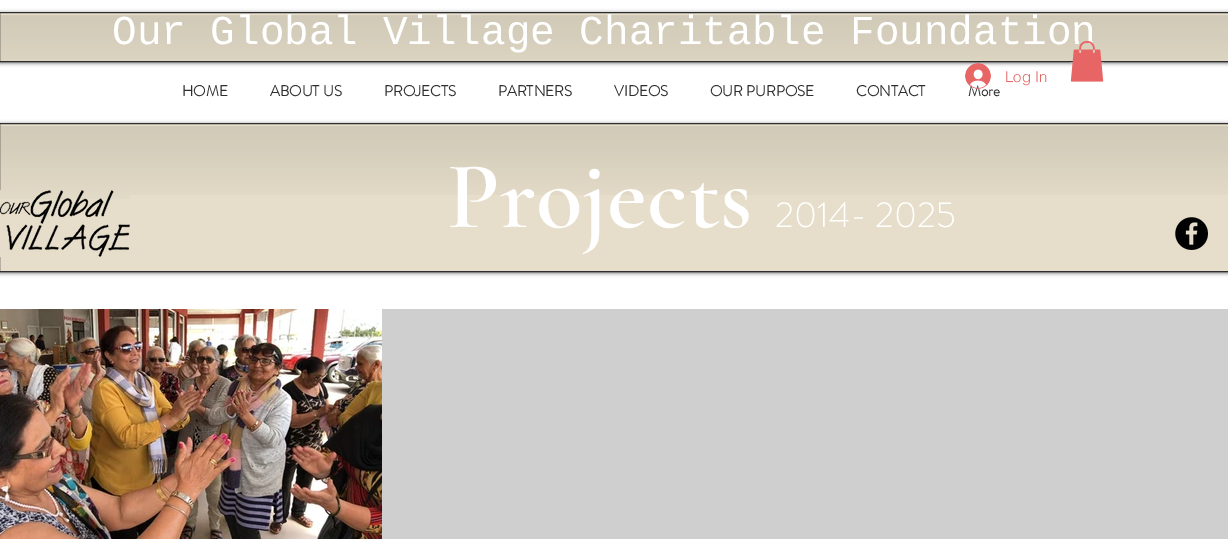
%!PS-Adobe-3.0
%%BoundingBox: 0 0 1228 539
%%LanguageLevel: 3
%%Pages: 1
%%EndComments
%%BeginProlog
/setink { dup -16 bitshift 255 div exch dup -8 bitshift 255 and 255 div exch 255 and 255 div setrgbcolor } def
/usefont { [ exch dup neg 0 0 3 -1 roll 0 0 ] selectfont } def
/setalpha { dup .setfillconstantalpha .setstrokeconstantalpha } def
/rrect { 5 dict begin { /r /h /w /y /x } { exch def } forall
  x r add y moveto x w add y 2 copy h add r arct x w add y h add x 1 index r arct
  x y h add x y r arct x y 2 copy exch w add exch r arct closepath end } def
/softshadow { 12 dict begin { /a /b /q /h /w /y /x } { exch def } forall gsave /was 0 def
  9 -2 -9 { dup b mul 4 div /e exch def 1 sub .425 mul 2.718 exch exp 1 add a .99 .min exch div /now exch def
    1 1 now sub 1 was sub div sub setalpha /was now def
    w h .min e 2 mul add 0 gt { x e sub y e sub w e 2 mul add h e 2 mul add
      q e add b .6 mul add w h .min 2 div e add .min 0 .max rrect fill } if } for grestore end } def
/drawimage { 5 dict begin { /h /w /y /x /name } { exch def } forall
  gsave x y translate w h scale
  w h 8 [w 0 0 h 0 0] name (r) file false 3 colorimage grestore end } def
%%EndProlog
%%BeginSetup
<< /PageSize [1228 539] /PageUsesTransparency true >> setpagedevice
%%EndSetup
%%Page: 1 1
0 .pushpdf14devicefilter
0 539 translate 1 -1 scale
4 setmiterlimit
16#FFFFFF setink
0 0 1228 539 rectfill
16#000000 setink
-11 13 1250 50 5 2 0.6 softshadow
16#E6DECA setink
0 13 1228 48 rectfill
(img1.raw) 0 15 1228 46 drawimage
16#2F2F2F setink
-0.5 12.5 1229 49 rectstroke
/LiberationMono-Regular 41 usefont
16#FFFFFF setink
112 44 moveto (Our Global Village Charitable Foundation) show
/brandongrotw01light-Bold 15 usefont
16#2F2F2F setink
968 96 moveto (More) show
(img2.raw) 965 63 26 26 drawimage
/helvetica-Light 15 usefont
16#E76565 setink
1005 82 moveto (Log In) show
(img3.raw) 1070 41 34 41 drawimage
/brandongrotw01light-Bold 15 usefont
16#2F2F2F setink
[
    [(HOME) 182 96]
    [(ABOUT US) 270 96]
    [(PROJECTS) 384 96]
    [(PARTNERS) 498 96]
    [(VIDEOS) 614 96]
    [(OUR PURPOSE) 710 96]
    [(CONTACT) 856 96]
] { aload pop moveto show } forall
16#000000 setink
-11 124 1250 149 5 2 0.6 softshadow
16#E6DECA setink
0 124 1228 147 rectfill
(img4.raw) 0 126 1228 69 drawimage
16#2F2F2F setink
-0.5 123.5 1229 148 rectstroke
(img5.raw) 0 190 130 67 drawimage
/CormorantGaramond-SemiBold 96 usefont
16#FFFFFF setink
447 227 moveto (Projects) show
/brandongrotw01light-Light 36 usefont
775 227 moveto (2014- 2025) show
(img6.raw) 1175 217 33 33 drawimage
16#CFCFCF setink
382 309 846 230 rectfill
(img7.raw) 0 309 382 230 drawimage
.poppdf14devicefilter showpage
%%EOF
